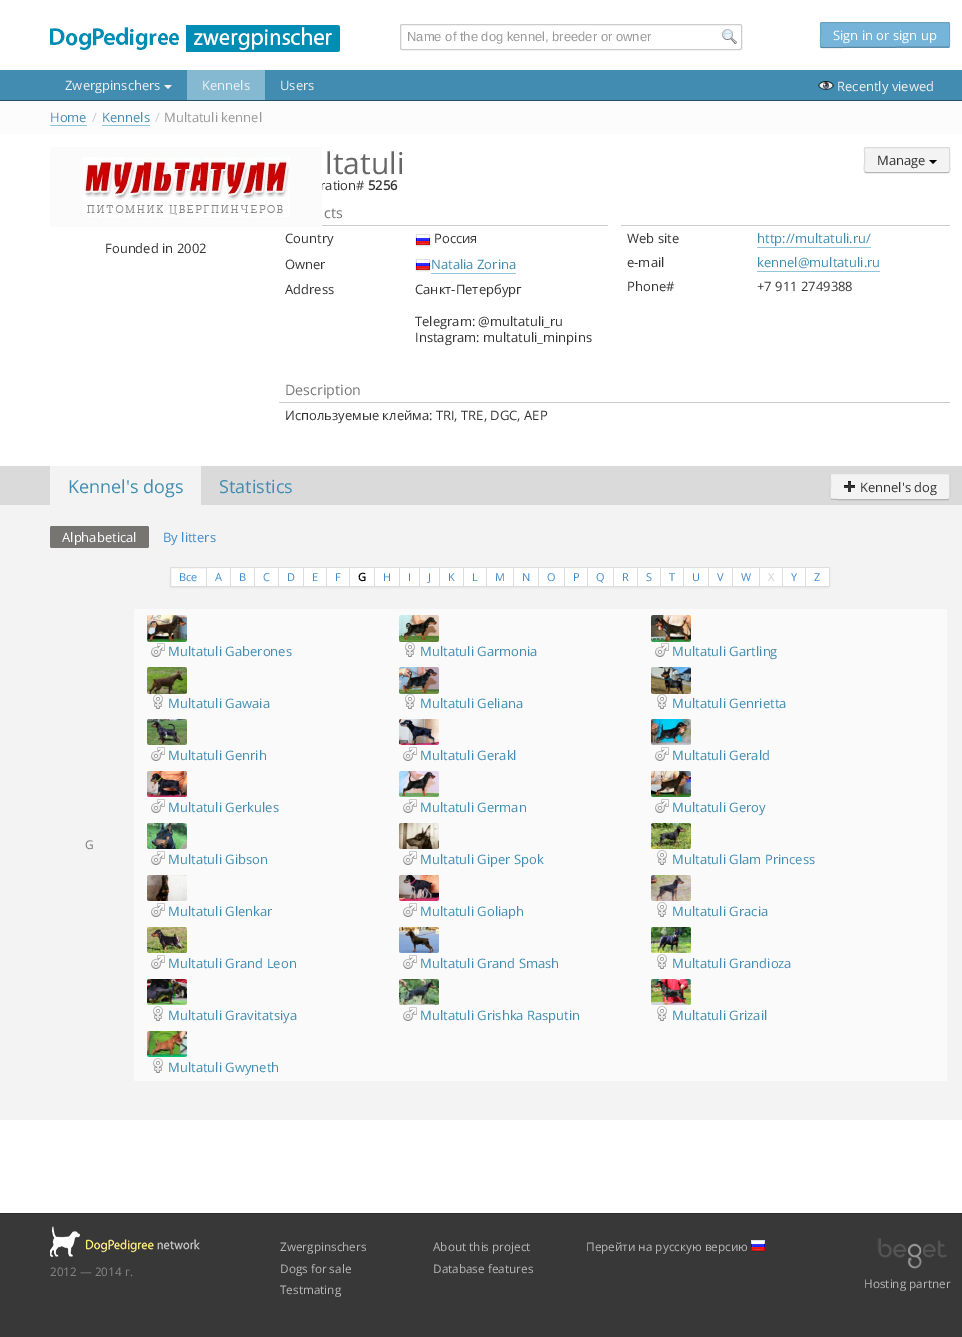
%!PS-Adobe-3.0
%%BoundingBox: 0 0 962 1337
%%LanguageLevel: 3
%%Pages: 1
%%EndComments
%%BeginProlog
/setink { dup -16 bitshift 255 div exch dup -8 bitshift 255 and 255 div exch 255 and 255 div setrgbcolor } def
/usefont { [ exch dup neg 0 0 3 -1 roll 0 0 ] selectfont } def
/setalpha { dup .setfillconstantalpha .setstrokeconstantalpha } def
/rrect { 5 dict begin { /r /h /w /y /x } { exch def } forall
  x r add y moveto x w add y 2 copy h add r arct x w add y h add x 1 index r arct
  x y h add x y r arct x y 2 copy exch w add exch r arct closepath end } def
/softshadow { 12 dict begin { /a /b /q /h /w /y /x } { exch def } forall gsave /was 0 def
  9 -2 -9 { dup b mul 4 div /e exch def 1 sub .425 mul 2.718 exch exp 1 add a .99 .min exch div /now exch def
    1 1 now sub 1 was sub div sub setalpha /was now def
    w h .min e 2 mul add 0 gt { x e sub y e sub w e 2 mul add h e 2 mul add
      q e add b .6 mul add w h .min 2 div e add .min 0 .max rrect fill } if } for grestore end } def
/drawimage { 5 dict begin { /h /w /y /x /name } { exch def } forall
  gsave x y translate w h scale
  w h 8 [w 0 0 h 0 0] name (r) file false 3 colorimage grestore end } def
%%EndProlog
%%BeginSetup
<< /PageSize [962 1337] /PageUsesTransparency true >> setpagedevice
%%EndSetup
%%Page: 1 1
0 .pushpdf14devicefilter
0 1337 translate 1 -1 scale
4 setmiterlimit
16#FFFFFF setink
0 0 962 1337 rectfill
(img1.raw) 50 25 290 27 drawimage
16#CCCCCC setink
400.5 24.5 341 25 1.5 rrect stroke
/LiberationSans-Regular 13 usefont
16#999999 setink
407 41 moveto (Name of the dog kennel, breeder or owner) show
(img2.raw) 722 29 15 15 drawimage
16#76B4DA setink
820 22 130 26 2 rrect fill
0.25 setalpha
16#000000 setink
949 47 moveto 843 47.5 lineto 822 47.5 lineto 821 47 lineto stroke
0.1 setalpha
821 47 moveto 819.5 45.5 820.5 37 820.5 35 curveto 820.5 27.5 lineto 820.5 27 819.5 22.5 822 22.5 curveto 948 22.5 lineto 950.5 22.5 949.5 27 949.5 27.5 curveto 949.5 35 lineto 949.5 37 950.5 45.5 949 47 curveto stroke
/OpenSans-Regular 13 usefont
1 setalpha
16#FFFFFF setink
833 40 moveto (Sign in or sign up) show
16#418CB0 setink
0 70 962 30 rectfill
16#255166 setink
0 100 962 1 rectfill
16#F1F1F1 setink
65 90 moveto (Zwergpinschers) show
164 85 moveto 172 85 lineto 168 89 lineto closepath fill
16#85B9D2 setink
187 70 78 30 rectfill
16#F1F1F1 setink
202 90 moveto (Kennels) show
280 90 moveto (Users) show
(img3.raw) 818 81 16 9 drawimage
837 91 moveto (Recently viewed) show
16#FCFCFC setink
0 101 962 33 rectfill
16#90C4DB setink
50 125 37 1 rectfill
16#418CB0 setink
50 122 moveto (Home) show
16#CCCCCC setink
92 122 moveto (/) show
16#90C4DB setink
102 125 48 1 rectfill
16#418CB0 setink
102 122 moveto (Kennels) show
16#CCCCCC setink
155 122 moveto (/) show
16#999999 setink
164 122 moveto (Multatuli kennel) show
16#333333 setink
320 190 moveto (ration#) show
16#FBFBFB setink
50 147 272 80 rectfill
(img4.raw) 83 157 207 60 drawimage
16#333333 setink
105 253 moveto (Founded in 2002) show
/OpenSans-Regular 30 usefont
16#666666 setink
325 174 moveto (ltatuli) show
/OpenSans-Bold 13 usefont
16#333333 setink
368 190 moveto (5256) show
16#F3F3F3 setink
864 147 86 26 2 rrect fill
16#B6B6B6 setink
949 172 moveto 948 172.5 lineto 866 172.5 lineto 865 172 lineto stroke
16#DBDBDB setink
865 172 moveto 863.5 170.5 864.5 165.5 864.5 163.5 curveto 864.5 152.5 lineto 864.5 152 863.5 147.5 866 147.5 curveto 948 147.5 lineto 950.5 147.5 949.5 152 949.5 152.5 curveto 949.5 163.5 lineto 949.5 165.5 950.5 170.5 949 172 curveto stroke
/OpenSans-Regular 13 usefont
16#333333 setink
877 165 moveto (Manage) show
16#000000 setink
929 160 moveto 937 160 lineto 933 164 lineto closepath fill
16#CCCCCC setink
322 225 286 1 rectfill
/OpenSans-Regular 14.25 usefont
16#777777 setink
324 218 moveto (cts) show
/OpenSans-Regular 13 usefont
16#333333 setink
285 243 moveto (Country) show
(img5.raw) 415 234 16 13 drawimage
434 243 moveto (Россия) show
285 269 moveto (Owner) show
(img5.raw) 415 259 16 13 drawimage
16#418CB0 setink
431 269 moveto (Natalia Zorina) show
16#91C5DC setink
431 273 85 1 rectfill
16#333333 setink
[
    [(Address) 285 294]
    [(Санкт-Петербург) 415 294]
    [(Telegram: @multatuli_ru) 415 326]
    [(Instagram: multatuli_minpins) 415 342]
] { aload pop moveto show } forall
16#CCCCCC setink
621 225 329 1 rectfill
16#333333 setink
627 243 moveto (Web site) show
16#418CB0 setink
757 243 moveto (http://multatuli.ru/) show
16#91C5DC setink
757 247 114 1 rectfill
16#333333 setink
627 267 moveto (e-mail) show
16#418CB0 setink
757 267 moveto (kennel@multatuli.ru) show
16#91C5DC setink
757 271 123 1 rectfill
16#333333 setink
627 291 moveto (Phone#) show
757 291 moveto (+7 911 2749388) show
16#CCCCCC setink
279 402 671 1 rectfill
/OpenSans-Regular 14.25 usefont
16#777777 setink
285 395 moveto (Description) show
/OpenSans-Regular 13 usefont
16#333333 setink
285 420 moveto (Используемые клейма: TRI, TRE, DGC, AEP) show
[
    [0 505 962 615 16#F3F3F3]
    [0 466 962 39 16#DADADA]
    [50 466 151 39 16#F3F3F3]
] { aload pop setink rectfill } forall
/OpenSans-Regular 18 usefont
16#418CB0 setink
68 493 moveto (Kennel's dogs) show
219 493 moveto (Statistics) show
16#F3F3F3 setink
830 473 120 27 2 rrect fill
0.25 setalpha
16#000000 setink
949 499 moveto 948 499.5 lineto 870.5 499.5 lineto 868 499.5 832 500 831 499 curveto stroke
0.1 setalpha
831 499 moveto 829.5 497.5 830.5 488.5 830.5 486.5 curveto 830.5 479 lineto 830.5 478 829.5 473.5 832 473.5 curveto 948 473.5 lineto 950.5 473.5 949.5 478 949.5 479 curveto 949.5 486.5 lineto 949.5 488.5 950.5 497.5 949 499 curveto stroke
1 setalpha
(img6.raw) 844 481 11 11 drawimage
/OpenSans-Regular 13 usefont
16#333333 setink
860 492 moveto (Kennel's dog) show
16#777572 setink
50 526 99 22 2 rrect fill
16#FFFFFF setink
62 542 moveto (Alphabetical) show
16#428BCA setink
163 542 moveto (By litters) show
16#000000 setink
170 568 660 20 2 1 0.05 softshadow
16#FFFFFF setink
171 567.5 moveto 206.5 567.5 lineto 206.5 586.5 lineto 171 586.5 lineto 170.5 586.5 170.5 586.5 170.5 586 curveto 170.5 568 lineto 170.5 567.5 170.5 567.5 171 567.5 curveto closepath gsave fill grestore
16#DDDDDD setink
stroke
/OpenSans-Regular 11 usefont
16#428BCA setink
179 581 moveto (Все) show
[
    [207 568 23 18 16#FFFFFF]
    [207 567 623 1 16#DDDDDD]
    [230 567 1 20 16#DDDDDD]
    [207 586 24 1 16#DDDDDD]
] { aload pop setink rectfill } forall
16#428BCA setink
215 581 moveto (A) show
[
    [231 568 23 18 16#FFFFFF]
    [254 567 1 20 16#DDDDDD]
    [231 586 24 1 16#DDDDDD]
] { aload pop setink rectfill } forall
16#428BCA setink
239 581 moveto (B) show
[
    [255 568 23 18 16#FFFFFF]
    [278 567 1 20 16#DDDDDD]
    [255 586 24 1 16#DDDDDD]
] { aload pop setink rectfill } forall
16#428BCA setink
263 581 moveto (C) show
[
    [279 568 24 18 16#FFFFFF]
    [303 567 1 20 16#DDDDDD]
    [279 586 25 1 16#DDDDDD]
] { aload pop setink rectfill } forall
16#428BCA setink
287 581 moveto (D) show
[
    [304 568 22 18 16#FFFFFF]
    [326 567 1 20 16#DDDDDD]
    [304 586 23 1 16#DDDDDD]
] { aload pop setink rectfill } forall
16#428BCA setink
312 581 moveto (E) show
[
    [327 568 22 18 16#FFFFFF]
    [349 567 1 20 16#DDDDDD]
    [327 586 23 1 16#DDDDDD]
] { aload pop setink rectfill } forall
16#428BCA setink
335 581 moveto (F) show
[
    [350 568 24 18 16#FFFFFF]
    [374 567 1 20 16#DDDDDD]
    [350 586 25 1 16#DDDDDD]
] { aload pop setink rectfill } forall
/OpenSans-Bold 11 usefont
16#000000 setink
358 581 moveto (G) show
[
    [375 568 24 18 16#FFFFFF]
    [399 567 1 20 16#DDDDDD]
    [375 586 25 1 16#DDDDDD]
] { aload pop setink rectfill } forall
/OpenSans-Regular 11 usefont
16#428BCA setink
383 581 moveto (H) show
[
    [400 568 19 18 16#FFFFFF]
    [419 567 1 20 16#DDDDDD]
    [400 586 20 1 16#DDDDDD]
] { aload pop setink rectfill } forall
16#428BCA setink
408 581 moveto (I) show
[
    [420 568 19 18 16#FFFFFF]
    [439 567 1 20 16#DDDDDD]
    [420 586 20 1 16#DDDDDD]
] { aload pop setink rectfill } forall
16#428BCA setink
428 581 moveto (J) show
[
    [440 568 23 18 16#FFFFFF]
    [463 567 1 20 16#DDDDDD]
    [440 586 24 1 16#DDDDDD]
] { aload pop setink rectfill } forall
16#428BCA setink
448 581 moveto (K) show
[
    [464 568 22 18 16#FFFFFF]
    [486 567 1 20 16#DDDDDD]
    [464 586 23 1 16#DDDDDD]
] { aload pop setink rectfill } forall
16#428BCA setink
472 581 moveto (L) show
[
    [487 568 26 18 16#FFFFFF]
    [513 567 1 20 16#DDDDDD]
    [487 586 27 1 16#DDDDDD]
] { aload pop setink rectfill } forall
16#428BCA setink
495 581 moveto (M) show
[
    [514 568 24 18 16#FFFFFF]
    [538 567 1 20 16#DDDDDD]
    [514 586 25 1 16#DDDDDD]
] { aload pop setink rectfill } forall
16#428BCA setink
522 581 moveto (N) show
[
    [539 568 25 18 16#FFFFFF]
    [564 567 1 20 16#DDDDDD]
    [539 586 26 1 16#DDDDDD]
] { aload pop setink rectfill } forall
16#428BCA setink
547 581 moveto (O) show
[
    [565 568 22 18 16#FFFFFF]
    [587 567 1 20 16#DDDDDD]
    [565 586 23 1 16#DDDDDD]
] { aload pop setink rectfill } forall
16#428BCA setink
573 581 moveto (P) show
[
    [588 568 25 18 16#FFFFFF]
    [613 567 1 20 16#DDDDDD]
    [588 586 26 1 16#DDDDDD]
] { aload pop setink rectfill } forall
16#428BCA setink
596 581 moveto (Q) show
[
    [614 568 23 18 16#FFFFFF]
    [637 567 1 20 16#DDDDDD]
    [614 586 24 1 16#DDDDDD]
] { aload pop setink rectfill } forall
16#428BCA setink
622 581 moveto (R) show
[
    [638 568 22 18 16#FFFFFF]
    [660 567 1 20 16#DDDDDD]
    [638 586 23 1 16#DDDDDD]
] { aload pop setink rectfill } forall
16#428BCA setink
646 581 moveto (S) show
[
    [661 568 22 18 16#FFFFFF]
    [683 567 1 20 16#DDDDDD]
    [661 586 23 1 16#DDDDDD]
] { aload pop setink rectfill } forall
16#428BCA setink
669 581 moveto (T) show
[
    [684 568 24 18 16#FFFFFF]
    [708 567 1 20 16#DDDDDD]
    [684 586 25 1 16#DDDDDD]
] { aload pop setink rectfill } forall
16#428BCA setink
692 581 moveto (U) show
[
    [709 568 23 18 16#FFFFFF]
    [732 567 1 20 16#DDDDDD]
    [709 586 24 1 16#DDDDDD]
] { aload pop setink rectfill } forall
16#428BCA setink
717 581 moveto (V) show
[
    [733 568 26 18 16#FFFFFF]
    [759 567 1 20 16#DDDDDD]
    [733 586 27 1 16#DDDDDD]
] { aload pop setink rectfill } forall
16#428BCA setink
741 581 moveto (W) show
[
    [760 568 22 18 16#FFFFFF]
    [782 567 1 20 16#DDDDDD]
    [760 586 23 1 16#DDDDDD]
] { aload pop setink rectfill } forall
16#CCCCCC setink
768 581 moveto (X) show
[
    [783 568 22 18 16#FFFFFF]
    [805 567 1 20 16#DDDDDD]
    [783 586 23 1 16#DDDDDD]
] { aload pop setink rectfill } forall
16#428BCA setink
791 581 moveto (Y) show
[
    [806 568 23 18 16#FFFFFF]
    [829 568 1 19 16#DDDDDD]
    [806 586 24 1 16#DDDDDD]
] { aload pop setink rectfill } forall
16#428BCA setink
814 581 moveto (Z) show
/OpenSans-Regular 12 usefont
16#777777 setink
85 849 moveto (G) show
16#FAFAFA setink
134 609 813 472 rectfill
(img7.raw) 147 615 40 27 drawimage
(img8.raw) 151 643 14 14 drawimage
/OpenSans-Regular 13 usefont
16#418CB0 setink
168 656 moveto (Multatuli Gaberones) show
(img9.raw) 399 615 40 27 drawimage
(img10.raw) 405 642 10 15 drawimage
420 656 moveto (Multatuli Garmonia) show
(img11.raw) 651 615 40 27 drawimage
(img8.raw) 655 643 14 14 drawimage
672 656 moveto (Multatuli Gartling) show
(img12.raw) 147 667 40 27 drawimage
(img10.raw) 153 694 10 15 drawimage
168 708 moveto (Multatuli Gawaia) show
(img13.raw) 399 667 40 27 drawimage
(img10.raw) 405 694 10 15 drawimage
420 708 moveto (Multatuli Geliana) show
(img14.raw) 651 667 40 27 drawimage
(img10.raw) 657 694 10 15 drawimage
672 708 moveto (Multatuli Genrietta) show
(img15.raw) 147 719 40 26 drawimage
(img8.raw) 151 747 14 14 drawimage
168 760 moveto (Multatuli Genrih) show
(img16.raw) 399 719 40 26 drawimage
(img8.raw) 403 747 14 14 drawimage
420 760 moveto (Multatuli Gerakl) show
(img17.raw) 651 719 40 26 drawimage
(img8.raw) 655 747 14 14 drawimage
672 760 moveto (Multatuli Gerald) show
(img18.raw) 147 771 40 26 drawimage
(img8.raw) 151 799 14 14 drawimage
168 812 moveto (Multatuli Gerkules) show
(img19.raw) 399 771 40 26 drawimage
(img8.raw) 403 799 14 14 drawimage
420 812 moveto (Multatuli German) show
(img20.raw) 651 771 40 26 drawimage
(img8.raw) 655 799 14 14 drawimage
672 812 moveto (Multatuli Geroy) show
(img21.raw) 147 823 40 26 drawimage
(img8.raw) 151 851 14 14 drawimage
168 864 moveto (Multatuli Gibson) show
(img22.raw) 399 823 40 26 drawimage
(img8.raw) 403 851 14 14 drawimage
420 864 moveto (Multatuli Giper Spok) show
(img23.raw) 651 823 40 26 drawimage
(img10.raw) 657 850 10 15 drawimage
672 864 moveto (Multatuli Glam Princess) show
(img24.raw) 147 875 40 26 drawimage
(img8.raw) 151 903 14 14 drawimage
168 916 moveto (Multatuli Glenkar) show
(img25.raw) 399 875 40 26 drawimage
(img8.raw) 403 903 14 14 drawimage
420 916 moveto (Multatuli Goliaph) show
(img26.raw) 651 875 40 26 drawimage
(img10.raw) 657 902 10 15 drawimage
672 916 moveto (Multatuli Gracia) show
(img27.raw) 147 927 40 26 drawimage
(img8.raw) 151 955 14 14 drawimage
168 968 moveto (Multatuli Grand Leon) show
(img28.raw) 399 927 40 26 drawimage
(img8.raw) 403 955 14 14 drawimage
420 968 moveto (Multatuli Grand Smash) show
(img29.raw) 651 927 40 26 drawimage
(img10.raw) 657 954 10 15 drawimage
672 968 moveto (Multatuli Grandioza) show
(img30.raw) 147 979 40 26 drawimage
(img10.raw) 153 1006 10 15 drawimage
168 1020 moveto (Multatuli Gravitatsiya) show
(img31.raw) 399 979 40 26 drawimage
(img8.raw) 403 1007 14 14 drawimage
420 1020 moveto (Multatuli Grishka Rasputin) show
(img32.raw) 651 979 40 26 drawimage
(img10.raw) 657 1006 10 15 drawimage
672 1020 moveto (Multatuli Grizail) show
(img33.raw) 147 1031 40 26 drawimage
(img10.raw) 153 1058 10 15 drawimage
168 1072 moveto (Multatuli Gwyneth) show
16#383838 setink
0 1214 962 123 rectfill
16#2B2B2B setink
0 1213 962 1 rectfill
/OpenSans-Regular 11.75 usefont
16#B8B8B8 setink
[
    [(Zwergpinschers) 280 1251]
    [(Dogs for sale) 280 1273]
    [(Testmating) 280 1294]
    [(About this project) 433 1251]
    [(Database features) 433 1273]
    [(Перейти на русскую версию) 586 1251]
] { aload pop moveto show } forall
(img34.raw) 751 1240 14 12 drawimage
(img35.raw) 50 1226 150 31 drawimage
16#848484 setink
50 1276 moveto (2012 — 2014 г.) show
(img36.raw) 877 1238 70 31 drawimage
16#B8B8B8 setink
864 1288 moveto (Hosting partner) show
.poppdf14devicefilter showpage
%%EOF
